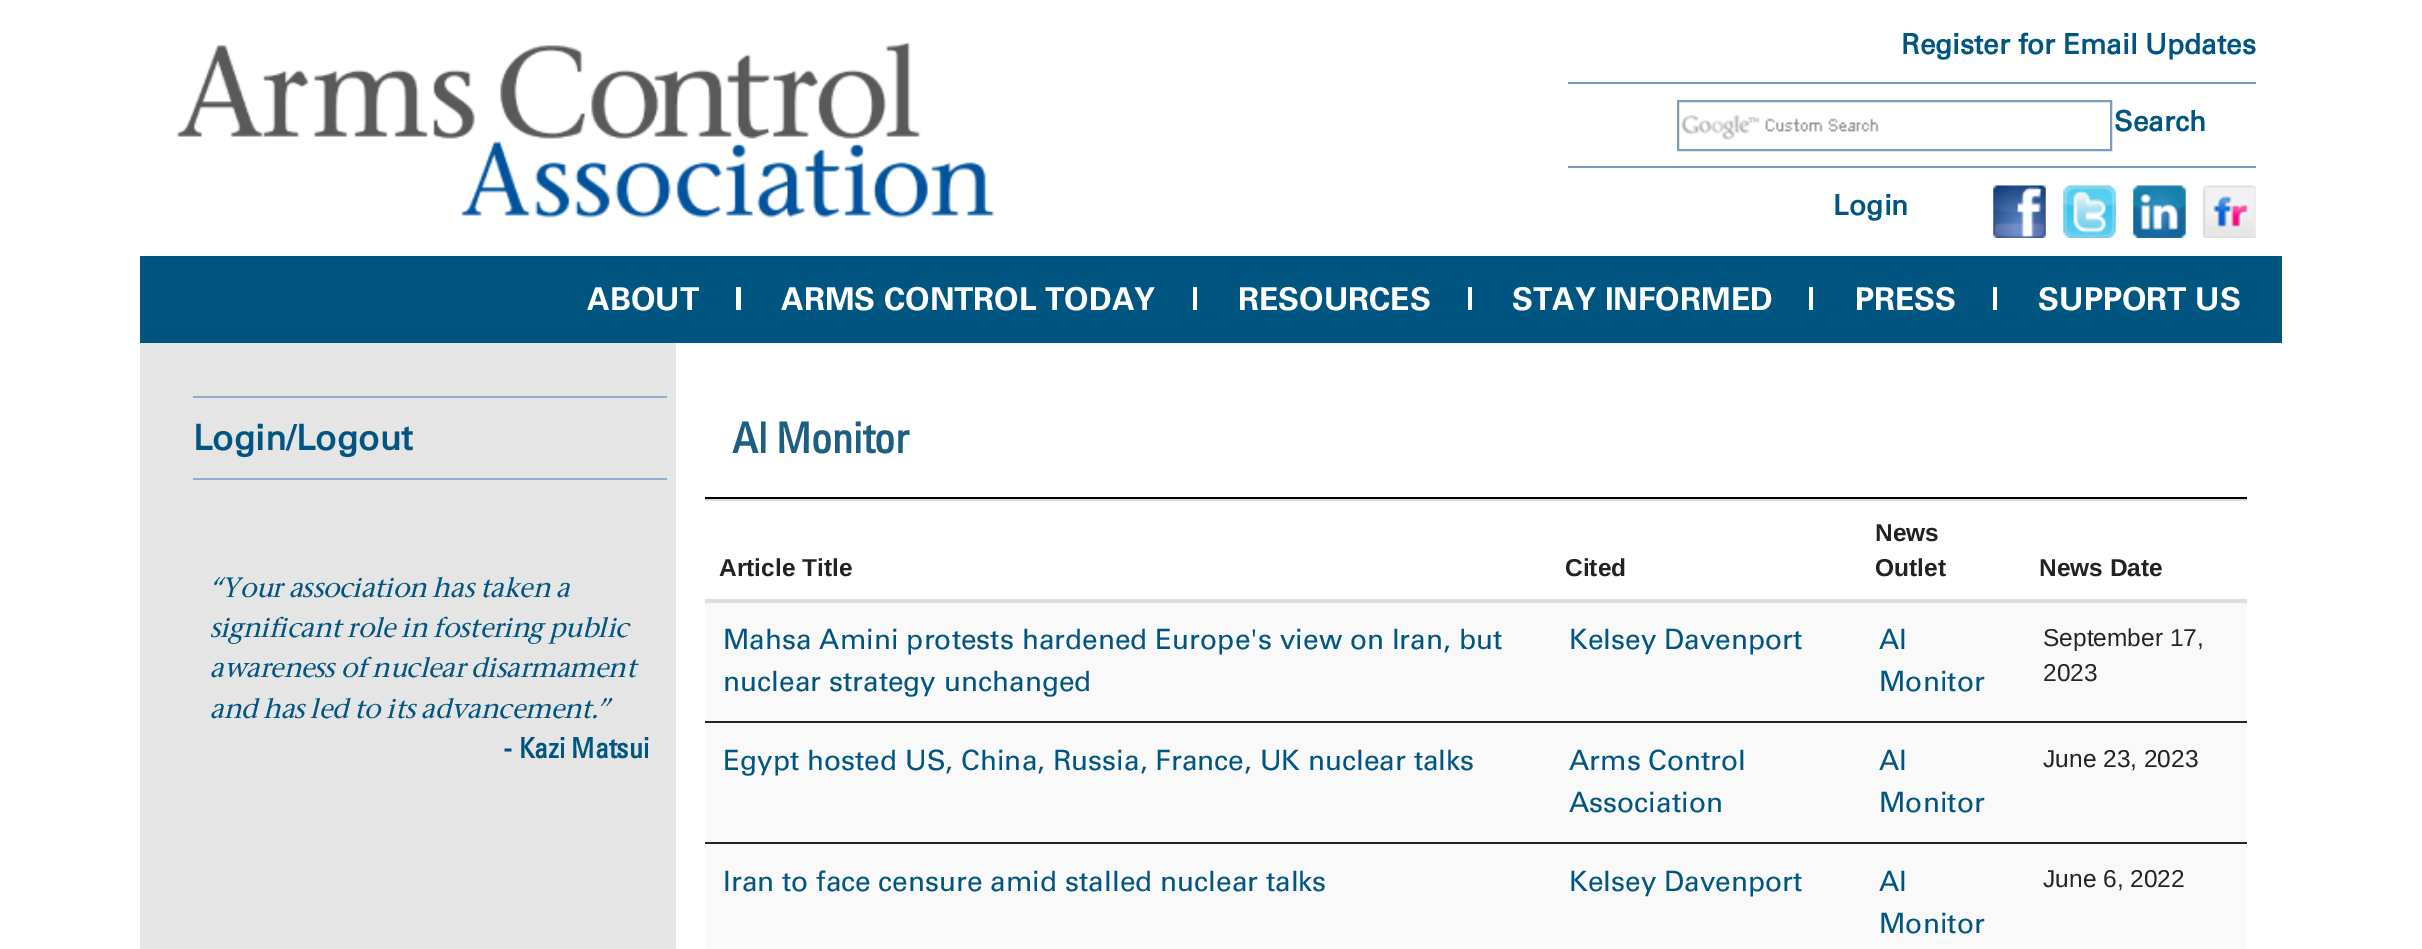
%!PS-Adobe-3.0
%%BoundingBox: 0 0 2422 949
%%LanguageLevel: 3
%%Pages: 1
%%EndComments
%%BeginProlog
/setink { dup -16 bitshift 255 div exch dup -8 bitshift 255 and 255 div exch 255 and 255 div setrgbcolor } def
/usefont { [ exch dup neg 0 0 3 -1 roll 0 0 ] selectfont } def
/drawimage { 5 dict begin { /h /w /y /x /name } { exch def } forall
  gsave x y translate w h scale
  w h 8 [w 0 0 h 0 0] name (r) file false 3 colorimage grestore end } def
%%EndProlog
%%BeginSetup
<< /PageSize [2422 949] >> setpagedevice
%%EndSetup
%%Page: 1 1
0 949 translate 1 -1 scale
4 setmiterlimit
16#FFFFFF setink
0 0 2422 949 rectfill
(img1.raw) 176 41 819 177 drawimage
/Univers-Bold 28 usefont
16#005581 setink
1901 54 moveto (Register for Email Updates) show
16#729BC7 setink
1568 82 688 2 rectfill
1568 166 688 2 rectfill
(img2.raw) 1681 115 198 25 drawimage
16#7E9DB9 setink
2 setlinewidth
1678 101 433 49 rectstroke
16#005581 setink
2114 131 moveto (Search) show
1833 215 moveto -7 0 32 (Log in) widthshow
(img3.raw) 1993 185 53 53 drawimage
(img4.raw) 2063 185 53 53 drawimage
(img5.raw) 2133 185 53 53 drawimage
(img6.raw) 2203 185 53 53 drawimage
140 256 2142 87 rectfill
16#FEFEFE setink
736 287 5 23 rectfill
/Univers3-Bold 31.5 usefont
16#FFFFFF setink
587 310 moveto (ABOUT) show
16#FEFEFE setink
1193 287 4 23 rectfill
16#FFFFFF setink
781 310 moveto (ARMS CONTROL TODAY) show
16#FEFEFE setink
1468 287 4 23 rectfill
16#FFFFFF setink
1238 310 moveto (RESOURCES) show
16#FEFEFE setink
1809 287 4 23 rectfill
16#FFFFFF setink
1512 310 moveto (STAY INFORMED) show
16#FEFEFE setink
1993 287 4 23 rectfill
16#FFFFFF setink
1855 310 moveto (PRESS) show
2038 310 moveto (SUPPORT US) show
[
    [140 343 536 606 16#E5E5E5]
    [193 478 474 2 16#8FAECF]
    [193 396 474 2 16#8FAECF]
] { aload pop setink rectfill } forall
/Univers-Bold 35 usefont
16#005581 setink
193 450 moveto (Login/Logout) show
/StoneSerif-MediumItalic 26.25 usefont
[
    [(“Your association has taken a) 210 597]
    [(significant role in fostering public) 210 637]
    [(awareness of nuclear disarmament) 210 677]
    [(and has led to its advancement.”) 210 718]
] { aload pop moveto show } forall
/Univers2-Bold 28 usefont
503 758 moveto (- Kazi Matsui) show
16#000000 setink
705 497 1542 2 rectfill
/Univers2-Bold 42 usefont
16#1C5F81 setink
732 453 moveto (Al Monitor) show
16#DDDDDD setink
705 499 1542 2 rectfill
/LiberationSans-Bold 24.5 usefont
16#222222 setink
[
    [(Article Title) 719 576]
    [(Cited) 1565 576]
    [(News) 1875 541]
    [(Outlet) 1875 576]
] { aload pop moveto show } forall
16#DDDDDD setink
705 599 1542 4 rectfill
16#222222 setink
2039 576 moveto (News Date) show
16#F9F9F9 setink
705 603 1542 118 rectfill
/Univers-Regular 28 usefont
16#005581 setink
[
    [(Mahsa Amini protests hardened Europe's view on Iran, but) 723 649]
    [(nuclear strategy unchanged) 723 691]
    [(Kelsey Davenport) 1569 649]
    [(Al) 1879 649]
    [(Monitor) 1879 691]
] { aload pop moveto show } forall
16#212529 setink
705 721 1542 2 rectfill
/LiberationSans-Regular 24.5 usefont
2043 646 moveto (September 17,) show
2043 681 moveto (2023) show
16#F9F9F9 setink
705 723 1542 119 rectfill
/Univers-Regular 28 usefont
16#005581 setink
[
    [(Egypt hosted US, China, Russia, France, UK nuclear talks) 723 770]
    [(Arms Control) 1569 770]
    [(Association) 1569 812]
    [(Al) 1879 770]
    [(Monitor) 1879 812]
] { aload pop moveto show } forall
16#222222 setink
705 842 1542 2 rectfill
/LiberationSans-Regular 24.5 usefont
2043 767 moveto (June 23, 2023) show
16#F9F9F9 setink
705 844 1542 105 rectfill
/Univers-Regular 28 usefont
16#005581 setink
[
    [(Iran to face censure amid stalled nuclear talks) 723 891]
    [(Kelsey Davenport) 1569 891]
    [(Al) 1879 891]
    [(Monitor) 1879 933]
] { aload pop moveto show } forall
/LiberationSans-Regular 24.5 usefont
16#212529 setink
2043 887 moveto (June 6, 2022) show
showpage
%%EOF
